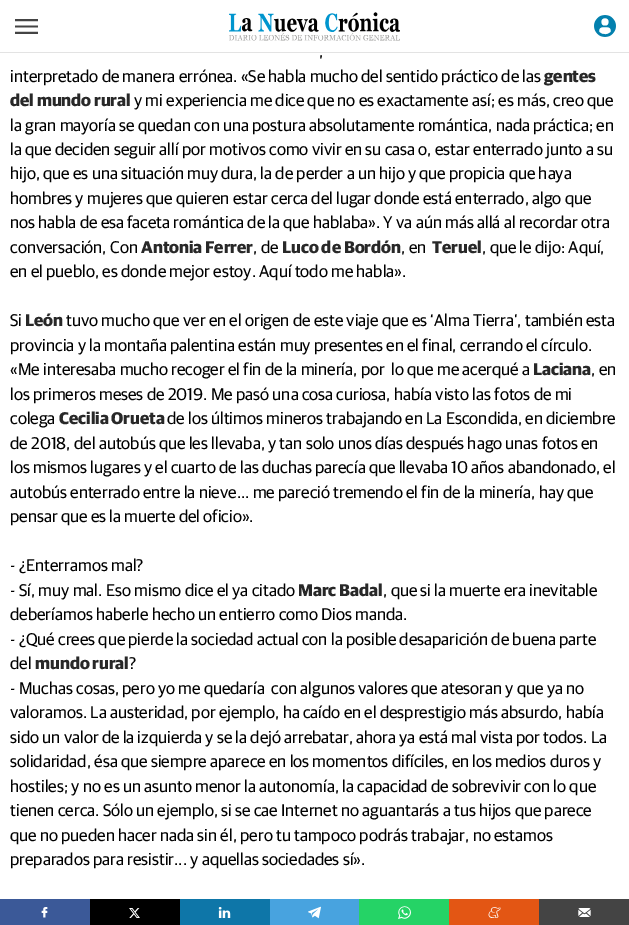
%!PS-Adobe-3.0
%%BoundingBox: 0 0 629 925
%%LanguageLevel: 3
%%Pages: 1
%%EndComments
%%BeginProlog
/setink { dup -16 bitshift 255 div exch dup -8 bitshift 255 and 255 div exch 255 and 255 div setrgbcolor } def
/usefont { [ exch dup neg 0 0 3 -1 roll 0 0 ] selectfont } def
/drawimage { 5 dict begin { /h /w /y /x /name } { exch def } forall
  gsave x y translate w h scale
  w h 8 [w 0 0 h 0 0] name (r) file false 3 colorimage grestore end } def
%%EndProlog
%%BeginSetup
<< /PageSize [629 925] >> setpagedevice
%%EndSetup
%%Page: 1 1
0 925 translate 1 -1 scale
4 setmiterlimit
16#FFFFFF setink
0 0 629 925 rectfill
16#E3E3E3 setink
0 52 629 1 rectfill
(img1.raw) 15 19 23 15 drawimage
(img2.raw) 229 12 171 29 drawimage
(img3.raw) 594 15 22 22 drawimage
/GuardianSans-Regular 17 usefont
16#000000 setink
319 57 moveto (,) show
10 82 moveto (interpretado de manera errónea. «Se habla mucho del sentido práctico de las) show
/GuardianSans-Bold 17 usefont
16#282828 setink
544 82 moveto (gentes) show
10 106 moveto (del mundo rural) show
/GuardianSans-Regular 17 usefont
16#000000 setink
[
    [(y mi experiencia me dice que no es exactamente así; es más, creo que) 134 106]
    [(la gran mayoría se quedan con una postura absolutamente romántica, nada práctica; en) 10 131]
    [(la que deciden seguir allí por motivos como vivir en su casa o, estar enterrado junto a su) 10 155]
    [(hijo, que es una situación muy dura, la de perder a un hijo y que propicia que haya) 10 179]
    [(hombres y mujeres que quieren estar cerca del lugar donde está enterrado, algo que) 10 204]
    [(nos habla de esa faceta romántica de la que hablaba». Y va aún más allá al recordar otra) 10 228]
    [(conversación, Con) 10 253]
] { aload pop moveto show } forall
/GuardianSans-Bold 17 usefont
16#282828 setink
141 253 moveto (Antonia Ferrer) show
/GuardianSans-Regular 17 usefont
16#000000 setink
253 253 moveto (, de) show
/GuardianSans-Bold 17 usefont
16#282828 setink
282 253 moveto (Luco de Bordón) show
/GuardianSans-Regular 17 usefont
16#000000 setink
401 253 moveto (, en) show
/GuardianSans-Bold 17 usefont
16#282828 setink
432 253 moveto (Teruel) show
/GuardianSans-Regular 17 usefont
16#000000 setink
[
    [(, que le dijo: Aquí,) 482 253]
    [(en el pueblo, es donde mejor estoy. Aquí todo me habla».) 10 277]
    [(Si) 10 326]
] { aload pop moveto show } forall
/GuardianSans-Bold 17 usefont
16#282828 setink
25 326 moveto (León) show
/GuardianSans-Regular 17 usefont
16#000000 setink
[
    [(tuvo mucho que ver en el origen de este viaje que es ‘Alma Tierra’, también esta) 66 326]
    [(provincia y la montaña palentina están muy presentes en el final, cerrando el círculo.) 10 351]
    [(«Me interesaba mucho recoger el fin de la minería, por  lo que me acerqué a) 10 375]
] { aload pop moveto show } forall
/GuardianSans-Bold 17 usefont
16#282828 setink
533 375 moveto (Laciana) show
/GuardianSans-Regular 17 usefont
16#000000 setink
[
    [(, en) 591 375]
    [(los primeros meses de 2019. Me pasó una cosa curiosa, había visto las fotos de mi) 10 400]
    [(colega) 10 424]
] { aload pop moveto show } forall
/GuardianSans-Bold 17 usefont
16#282828 setink
59 424 moveto (Cecilia Orueta) show
/GuardianSans-Regular 17 usefont
16#000000 setink
[
    [(de los últimos mineros trabajando en La Escondida, en diciembre) 167 424]
    [(de 2018, del autobús que les llevaba, y tan solo unos días después hago unas fotos en) 10 449]
    [(los mismos lugares y el cuarto de las duchas parecía que llevaba 10 años abandonado, el) 10 473]
    [(autobús enterrado entre la nieve... me pareció tremendo el fin de la minería, hay que) 10 498]
    [(pensar que es la muerte del oficio».) 10 522]
    [(- ¿Enterramos mal?) 10 571]
    [(- Sí, muy mal. Eso mismo dice el ya citado) 10 596]
] { aload pop moveto show } forall
/GuardianSans-Bold 17 usefont
16#282828 setink
298 596 moveto (Marc Badal) show
/GuardianSans-Regular 17 usefont
16#000000 setink
[
    [(, que si la muerte era inevitable) 383 596]
    [(deberíamos haberle hecho un entierro como Dios manda.) 10 620]
    [(- ¿Qué crees que pierde la sociedad actual con la posible desaparición de buena parte) 10 645]
    [(del) 10 669]
] { aload pop moveto show } forall
/GuardianSans-Bold 17 usefont
16#282828 setink
35 669 moveto (mundo rural) show
/GuardianSans-Regular 17 usefont
16#000000 setink
[
    [(?) 129 669]
    [(- Muchas cosas, pero yo me quedaría  con algunos valores que atesoran y que ya no) 10 694]
    [(valoramos. La austeridad, por ejemplo, ha caído en el desprestigio más absurdo, había) 10 718]
    [(sido un valor de la izquierda y se la dejó arrebatar, ahora ya está mal vista por todos. La) 10 743]
    [(solidaridad, ésa que siempre aparece en los momentos difíciles, en los medios duros y) 10 767]
    [(hostiles; y no es un asunto menor la autonomía, la capacidad de sobrevivir con lo que) 10 792]
    [(tienen cerca. Sólo un ejemplo, si se cae Internet no aguantarás a tus hijos que parece) 10 816]
    [(que no pueden hacer nada sin él, pero tu tampoco podrás trabajar, no estamos) 10 841]
    [(preparados para resistir... y aquellas sociedades sí».) 10 865]
] { aload pop moveto show } forall
16#3B5998 setink
0 899 90 26 rectfill
(img4.raw) 41 907 7 11 drawimage
16#000000 setink
90 899 90 26 rectfill
(img5.raw) 129 908 11 10 drawimage
16#0E76A8 setink
180 899 90 26 rectfill
(img6.raw) 218 907 13 11 drawimage
16#48A3DF setink
270 899 89 26 rectfill
(img7.raw) 308 906 13 13 drawimage
16#25D366 setink
359 899 90 26 rectfill
(img8.raw) 398 906 13 13 drawimage
16#E35614 setink
449 899 90 26 rectfill
(img9.raw) 488 907 13 11 drawimage
16#444444 setink
539 899 90 26 rectfill
(img10.raw) 578 908 13 9 drawimage
showpage
%%EOF
